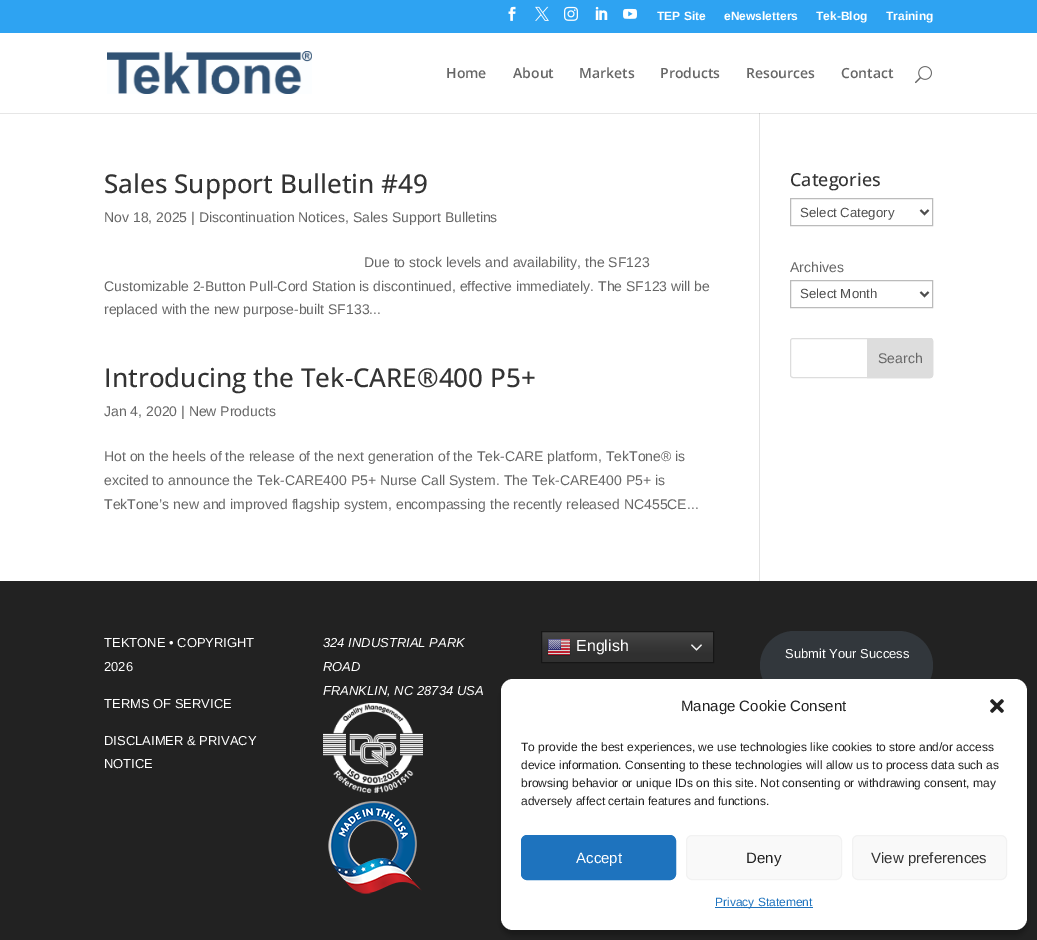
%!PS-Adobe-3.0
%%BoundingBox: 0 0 1037 940
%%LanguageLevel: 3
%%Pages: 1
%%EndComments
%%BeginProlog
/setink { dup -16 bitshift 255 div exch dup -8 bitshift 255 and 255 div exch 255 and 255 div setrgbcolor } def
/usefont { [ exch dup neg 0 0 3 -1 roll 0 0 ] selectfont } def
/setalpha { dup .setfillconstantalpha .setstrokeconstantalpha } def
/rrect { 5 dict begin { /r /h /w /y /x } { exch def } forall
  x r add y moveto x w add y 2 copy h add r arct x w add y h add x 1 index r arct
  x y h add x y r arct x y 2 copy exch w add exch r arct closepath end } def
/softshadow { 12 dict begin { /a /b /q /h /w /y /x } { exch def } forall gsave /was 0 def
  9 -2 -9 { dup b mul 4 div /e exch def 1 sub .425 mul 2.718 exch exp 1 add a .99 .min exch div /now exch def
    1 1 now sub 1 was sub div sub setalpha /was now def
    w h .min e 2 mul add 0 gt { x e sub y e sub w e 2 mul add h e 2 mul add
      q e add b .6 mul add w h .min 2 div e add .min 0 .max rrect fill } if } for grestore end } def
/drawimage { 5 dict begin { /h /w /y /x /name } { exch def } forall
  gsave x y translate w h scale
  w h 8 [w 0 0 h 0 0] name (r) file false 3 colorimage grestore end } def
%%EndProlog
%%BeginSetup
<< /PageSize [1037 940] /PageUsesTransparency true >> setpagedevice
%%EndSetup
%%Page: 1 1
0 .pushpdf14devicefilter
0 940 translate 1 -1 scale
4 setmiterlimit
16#FFFFFF setink
0 0 1037 940 rectfill
16#E6E6E6 setink
0 113 1037 1 rectfill
16#2EA3F2 setink
0 0 1037 33 rectfill
(img1.raw) 508 6 8 15 drawimage
(img2.raw) 535 6 14 15 drawimage
(img3.raw) 564 6 14 15 drawimage
(img4.raw) 595 6 13 14 drawimage
(img5.raw) 623 8 14 11 drawimage
/LiberationSans-Bold 12 usefont
16#FFFFFF setink
[
    [(TEP Site) 657 20]
    [(eNewsletters) 724 20]
    [(Tek-Blog) 816 20]
    [(Training) 886 20]
] { aload pop moveto show } forall
16#E2E2E2 setink
759 112 1 469 rectfill
16#FFFFFF setink
759 112 1 1 rectfill
(img6.raw) 107 51 205 43 drawimage
/OpenSans-SemiBold 14 usefont
16#666666 setink
[
    [(Home) 446 78]
    [(About) 513 78]
    [(Markets) 579 78]
    [(Products) 660 78]
    [(Resources) 746 78]
    [(Contact) 841 78]
] { aload pop moveto show } forall
(img7.raw) 915 66 17 18 drawimage
16#CBCBCB setink
759 113 1 1 rectfill
/OpenSans-Medium 26 usefont
16#333333 setink
104 193 moveto (Sales Support Bulletin #49) show
/LiberationSans-Regular 14 usefont
16#666666 setink
[
    [(Nov 18, 2025 | Discontinuation Notices, Sales Support Bulletins) 104 222]
    [(Due to stock levels and availability, the SF123) 364 267]
    [(Customizable 2-Button Pull-Cord Station is discontinued, effective immediately. The SF123 will be) 104 291]
    [(replaced with the new purpose-built SF133...) 104 314]
] { aload pop moveto show } forall
/OpenSans-Medium 26 usefont
16#333333 setink
104 387 moveto (Introducing the Tek-CARE®400 P5+) show
/LiberationSans-Regular 14 usefont
16#666666 setink
[
    [(Jan 4, 2020 | New Products) 104 416]
    [(Hot on the heels of the release of the next generation of the Tek-CARE platform, TekTone® is) 104 461]
    [(excited to announce the Tek-CARE400 P5+ Nurse Call System. The Tek-CARE400 P5+ is) 104 485]
    [(TekTone’s new and improved flagship system, encompassing the recently released NC455CE...) 104 509]
] { aload pop moveto show } forall
/OpenSans-Medium 18 usefont
16#333333 setink
790 186 moveto (Categories) show
16#BBBBBB setink
790.5 198.5 142 27 rectstroke
16#4E4E4E setink
2 setlinewidth
920.5 210 moveto 924.5 214 lineto 928.5 210 lineto stroke
/LiberationSans-Regular 13.25 usefont
800 217 moveto (Select Category) show
/LiberationSans-Regular 14 usefont
16#666666 setink
790 272 moveto (Archives) show
16#BBBBBB setink
1 setlinewidth
790.5 280.5 142 27 rectstroke
16#4E4E4E setink
2 setlinewidth
920.5 292 moveto 924.5 296 lineto 928.5 292 lineto stroke
/LiberationSans-Regular 13.25 usefont
800 298 moveto (Select Month) show
16#DDDDDD setink
1 setlinewidth
790.5 338.5 142 39 2.5 rrect stroke
867.5 338.5 moveto 930 338.5 lineto 931.5 338.5 932.5 339.5 932.5 341 curveto 932.5 375 lineto 932.5 376.5 931.5 377.5 930 377.5 curveto 867.5 377.5 lineto closepath gsave fill grestore
stroke
/LiberationSans-Regular 14 usefont
16#666666 setink
878 363 moveto (Search) show
16#222222 setink
0 581 1037 359 rectfill
/LiberationSans-Regular 13 usefont
16#FFFFFF setink
[
    [(TEKTONE • COPYRIGHT) 104 647]
    [(2026) 104 671]
    [(TERMS OF SERVICE) 104 708]
    [(DISCLAIMER & PRIVACY) 104 745]
    [(NOTICE) 104 768]
] { aload pop moveto show } forall
/LiberationSans-Italic 13 usefont
[
    [(324 INDUSTRIAL PARK) 323 647]
    [(ROAD) 323 671]
    [(FRANKLIN, NC 28734 USA) 323 695]
] { aload pop moveto show } forall
(img8.raw) 323 703 100 90 drawimage
(img9.raw) 328 801 94 93 drawimage
gsave 542 632 moveto 713 632 lineto 713 662 lineto 542 662 lineto closepath clip newpath
<< /ShadingType 2 /ColorSpace /DeviceRGB /Coords [628 631 628 663] /Extend [true true] /Function << /FunctionType 3 /Domain [0 1] /Functions [<< /FunctionType 2 /Domain [0 1] /C0 [0.278 0.278 0.278] /C1 [0.188 0.188 0.188] /N 1 >> << /FunctionType 2 /Domain [0 1] /C0 [0.188 0.188 0.188] /C1 [0.188 0.188 0.188] /N 1 >>] /Bounds [0.7] /Encode [0 1 0 1] >> >> shfill grestore
16#161616 setink
541.5 631.5 172 31 rectstroke
(img10.raw) 547 639 24 17 drawimage
/LiberationSans-Regular 16 usefont
16#FFFFFF setink
576 651 moveto (English) show
(img11.raw) 691 644 11 7 drawimage
16#32373C setink
760 631 173 69 34.5 rrect fill
/LiberationSans-Regular 13 usefont
16#FFFFFF setink
785 658 moveto (Submit Your Success) show
16#000000 setink
501 685 526 251 12 3 0.23 softshadow
16#FFFFFF setink
501 679 526 251 12 rrect fill
/LiberationSans-Regular 15 usefont
16#222222 setink
681 711 moveto (Manage Cookie Consent) show
(img12.raw) 990 699 14 14 drawimage
/LiberationSans-Regular 12 usefont
[
    [(To provide the best experiences, we use technologies like cookies to store and/or access) 521 751]
    [(device information. Consenting to these technologies will allow us to process data such as) 521 769]
    [(browsing behavior or unique IDs on this site. Not consenting or withdrawing consent, may) 521 787]
    [(adversely affect certain features and functions.) 521 805]
] { aload pop moveto show } forall
16#1E73BE setink
521.5 835.5 154 44 5.5 rrect gsave fill grestore
stroke
/LiberationSans-Regular 15 usefont
16#FFFFFF setink
576 863 moveto (Accept) show
16#F9F9F9 setink
686.5 835.5 155 44 5.5 rrect gsave fill grestore
16#F2F2F2 setink
stroke
16#222222 setink
746 863 moveto (Deny) show
16#F9F9F9 setink
852.5 835.5 154 44 5.5 rrect gsave fill grestore
16#F2F2F2 setink
stroke
16#333333 setink
871 863 moveto (View preferences) show
16#1E73BE setink
715 907 98 1 rectfill
/LiberationSans-Regular 12 usefont
715 906 moveto (Privacy Statement) show
.poppdf14devicefilter showpage
%%EOF
